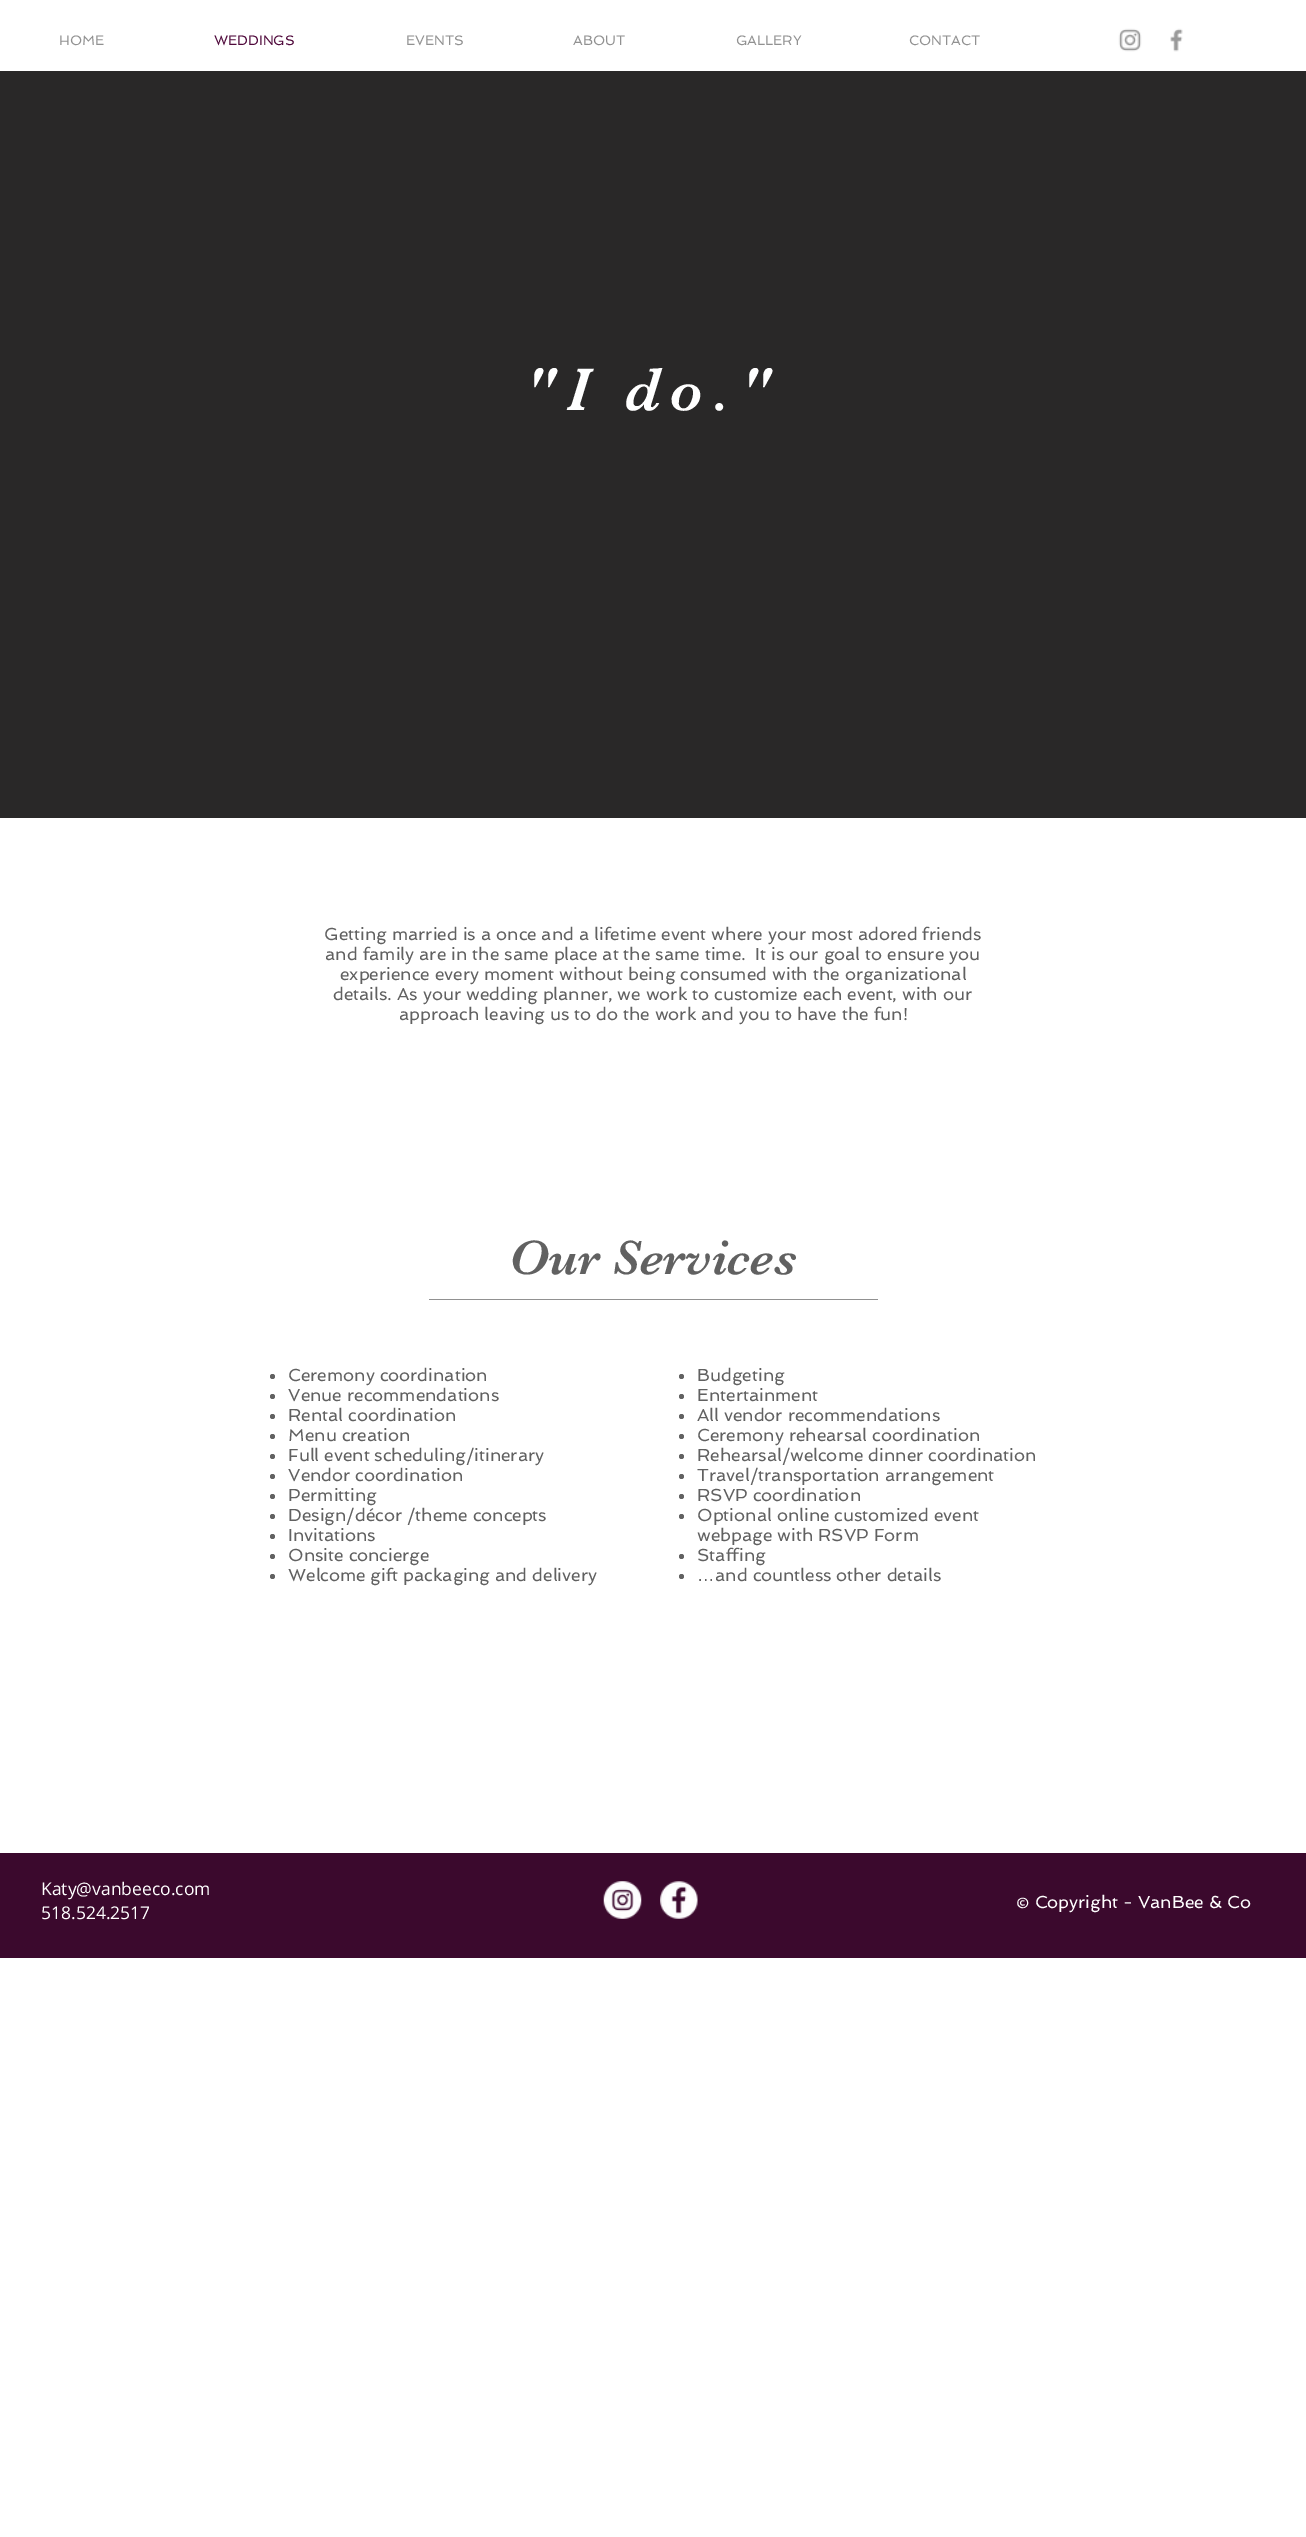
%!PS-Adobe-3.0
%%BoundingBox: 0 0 1306 2537
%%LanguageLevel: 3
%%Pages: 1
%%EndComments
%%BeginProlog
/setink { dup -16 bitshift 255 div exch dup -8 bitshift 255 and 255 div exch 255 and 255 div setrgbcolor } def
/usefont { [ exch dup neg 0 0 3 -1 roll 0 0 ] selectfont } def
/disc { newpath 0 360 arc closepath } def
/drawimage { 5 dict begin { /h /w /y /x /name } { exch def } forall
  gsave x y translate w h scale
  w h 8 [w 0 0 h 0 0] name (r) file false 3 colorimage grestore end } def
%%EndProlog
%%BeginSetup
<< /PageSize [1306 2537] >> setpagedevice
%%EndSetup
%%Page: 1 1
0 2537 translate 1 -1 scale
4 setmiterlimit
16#FFFFFF setink
0 0 1306 2537 rectfill
/Spinnaker-Regular 13.75 usefont
16#919191 setink
59 45 moveto (HOME) show
16#500A3C setink
214 45 moveto (WEDDINGS) show
16#919191 setink
[
    [(EVENTS) 406 45]
    [(ABOUT) 573 45]
    [(GALLERY) 736 45]
    [(CONTACT) 909 45]
] { aload pop moveto show } forall
(img1.raw) 1118 28 24 24 drawimage
(img2.raw) 1170 28 13 24 drawimage
16#292828 setink
0 71 1306 747 rectfill
/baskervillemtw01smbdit-Regular 62.5 usefont
16#FFFFFF setink
524 410 moveto 9.5 0 ("I do.") ashow
/Spinnaker-Regular 17.5 usefont
16#616161 setink
[
    [(Getting married is a once and a lifetime event where your most adored friends) 324 940]
    [(and family are in the same place at the same time.  It is our goal to ensure you) 325 960]
    [(experience every moment without being consumed with the organizational) 340 980]
    [(details. As your wedding planner, we work to customize each event, with our) 333 1000]
    [(approach leaving us to do the work and you to have the fun!) 399 1020]
] { aload pop moveto show } forall
/baskervillemtw01smbdit-Regular 50 usefont
509 1274 moveto (Our Services) show
16#919191 setink
429 1299 449 1 rectfill
16#616161 setink
272.5 1376.5 2.5 disc fill
/Spinnaker-Regular 17.5 usefont
288 1381 moveto (Ceremony coordination) show
272.5 1396.5 2.5 disc fill
288 1401 moveto (Venue recommendations) show
272.5 1416.5 2.5 disc fill
288 1421 moveto (Rental coordination) show
272.5 1436.5 2.5 disc fill
288 1441 moveto (Menu creation) show
272.5 1456.5 2.5 disc fill
288 1461 moveto (Full event scheduling/itinerary) show
272.5 1476.5 2.5 disc fill
288 1481 moveto (Vendor coordination) show
272.5 1496.5 2.5 disc fill
288 1501 moveto (Permitting) show
272.5 1516.5 2.5 disc fill
288 1521 moveto (Design/décor /theme concepts) show
272.5 1536.5 2.5 disc fill
288 1541 moveto (Invitations) show
272.5 1556.5 2.5 disc fill
288 1561 moveto (Onsite concierge) show
272.5 1576.5 2.5 disc fill
288 1581 moveto (Welcome gift packaging and delivery) show
681.5 1376.5 2.5 disc fill
697 1381 moveto (Budgeting) show
681.5 1396.5 2.5 disc fill
697 1401 moveto (Entertainment) show
681.5 1416.5 2.5 disc fill
697 1421 moveto (All vendor recommendations) show
681.5 1436.5 2.5 disc fill
697 1441 moveto (Ceremony rehearsal coordination) show
681.5 1456.5 2.5 disc fill
697 1461 moveto (Rehearsal/welcome dinner coordination) show
681.5 1476.5 2.5 disc fill
697 1481 moveto (Travel/transportation arrangement) show
681.5 1496.5 2.5 disc fill
697 1501 moveto (RSVP coordination) show
681.5 1516.5 2.5 disc fill
697 1521 moveto (Optional online customized event) show
697 1541 moveto (webpage with RSVP Form) show
681.5 1556.5 2.5 disc fill
697 1561 moveto (Staffing) show
681.5 1576.5 2.5 disc fill
/LiberationSans-Regular 17.5 usefont
697 1581 moveto (…) show
/Spinnaker-Regular 17.5 usefont
715 1581 moveto (and countless other details) show
16#3B092D setink
0 1853 1306 105 rectfill
/OpenSans-Regular 17.5 usefont
16#FFFFFF setink
41 1895 moveto (Katy@vanbeeco.com) show
41 1919 moveto (518.524.2517) show
(img3.raw) 603 1881 39 38 drawimage
(img4.raw) 660 1881 38 38 drawimage
/Spinnaker-Regular 17.5 usefont
1016 1908 moveto (© Copyright - VanBee & Co) show
showpage
%%EOF
